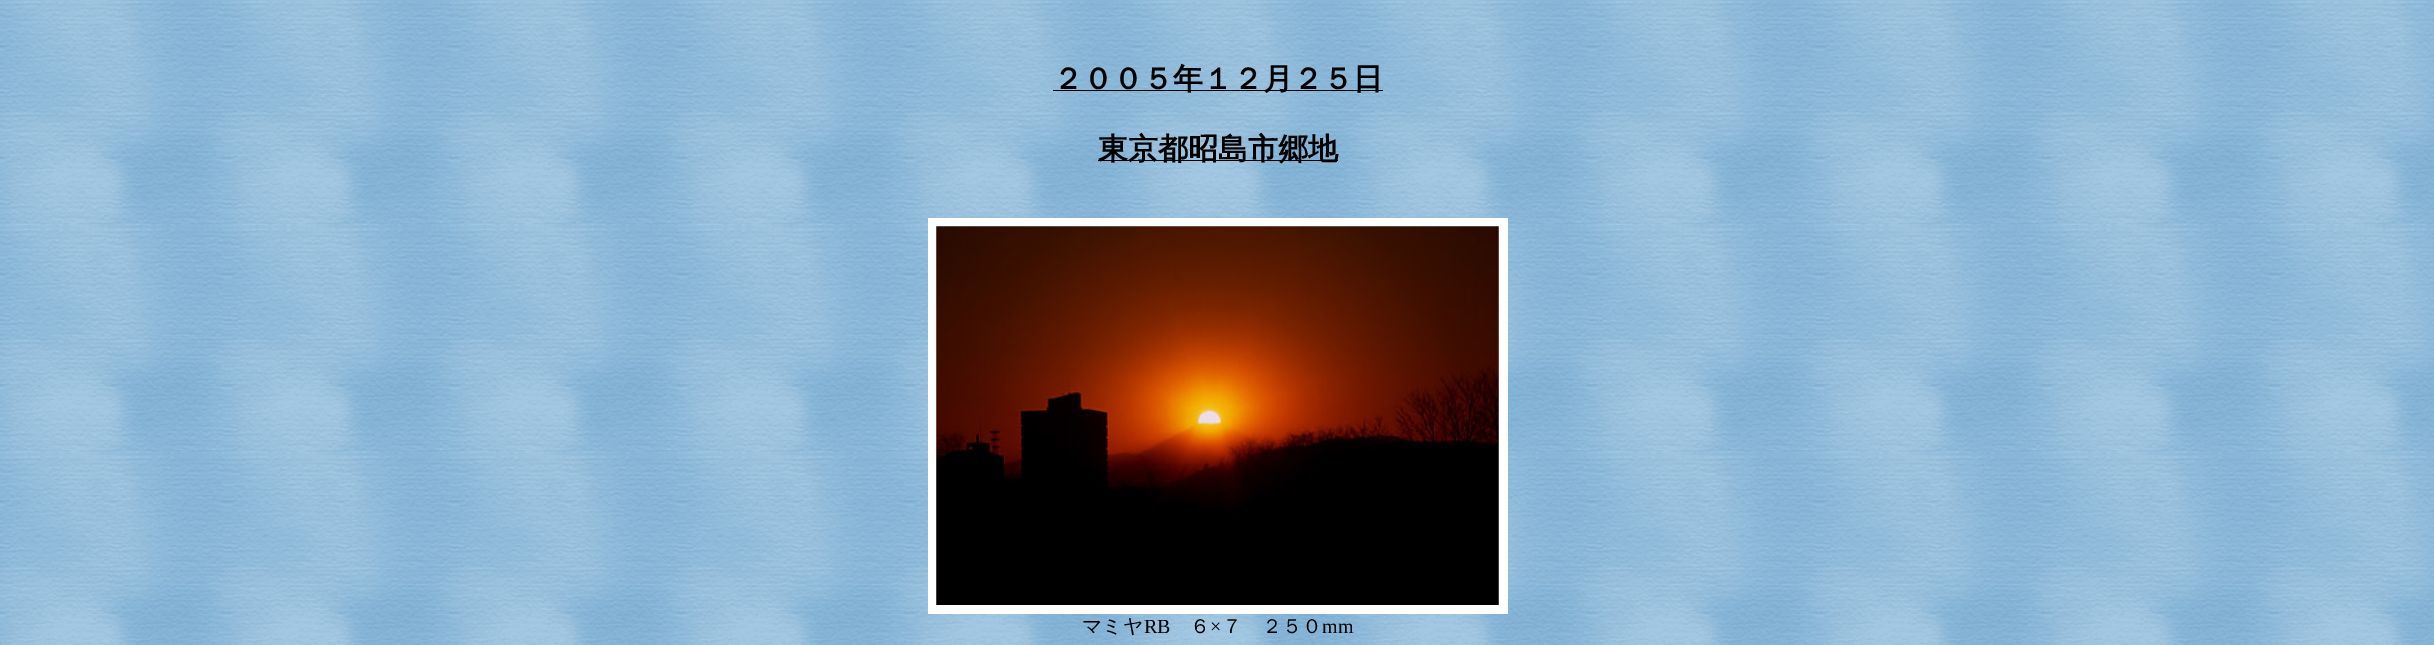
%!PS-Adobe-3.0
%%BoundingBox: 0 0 2434 645
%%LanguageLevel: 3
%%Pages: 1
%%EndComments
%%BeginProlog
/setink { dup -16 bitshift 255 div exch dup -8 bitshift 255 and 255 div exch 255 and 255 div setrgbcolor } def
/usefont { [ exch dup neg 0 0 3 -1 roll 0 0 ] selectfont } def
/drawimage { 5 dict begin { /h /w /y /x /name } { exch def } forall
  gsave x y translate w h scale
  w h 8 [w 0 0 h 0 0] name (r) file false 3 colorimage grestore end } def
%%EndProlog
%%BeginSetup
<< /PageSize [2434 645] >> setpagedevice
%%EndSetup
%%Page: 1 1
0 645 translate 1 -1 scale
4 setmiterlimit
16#FFFFFF setink
0 0 2434 645 rectfill
(img1.raw) 0 0 2434 645 drawimage
16#000000 setink
1053 90 330 1 rectfill
/WenQuanYiZenHei-Bold 30 usefont
1053 89 moveto (２００５年１２月２５日) show
1098 160 240 1 rectfill
1098 159 moveto (東京都昭島市郷地) show
16#FFFFFF setink
928 218 580 396 rectfill
(img2.raw) 936 226 563 379 drawimage
/WenQuanYiZenHei-Medium 20 usefont
16#000000 setink
1082 633 moveto (マミヤ) show
/LiberationSerif-Regular 20 usefont
1144 633 moveto (RB) show
/WenQuanYiZenHei-Medium 20 usefont
1190 633 moveto (６) show
/LiberationSerif-Regular 20 usefont
1210 633 moveto (×) show
/WenQuanYiZenHei-Medium 20 usefont
1222 633 moveto (７　２５０) show
/LiberationSerif-Regular 20 usefont
1322 633 moveto (mm) show
showpage
%%EOF
